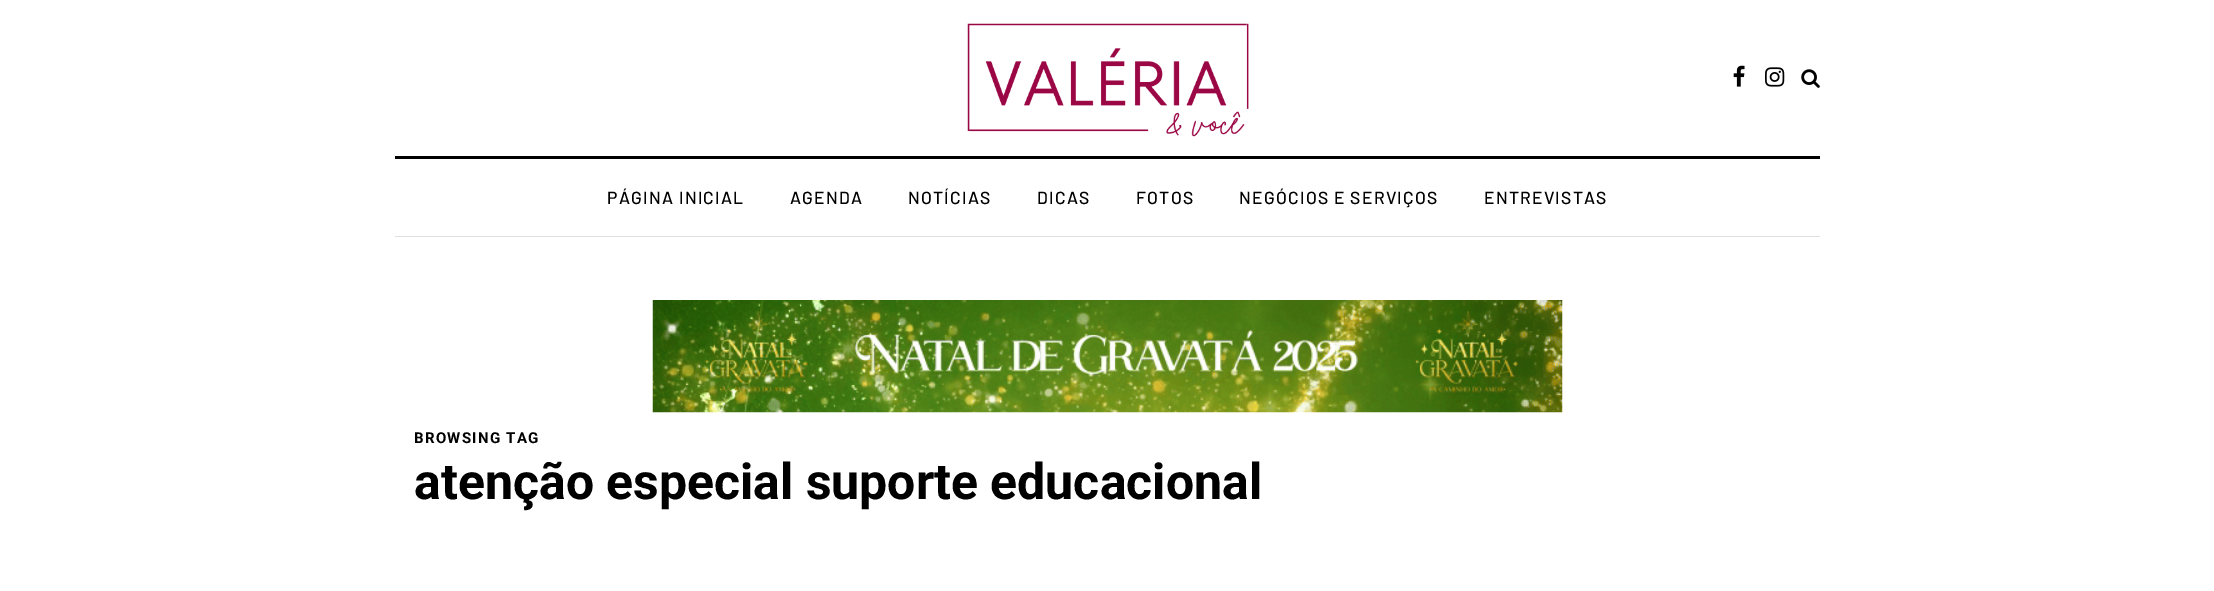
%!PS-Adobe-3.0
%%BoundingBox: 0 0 2214 591
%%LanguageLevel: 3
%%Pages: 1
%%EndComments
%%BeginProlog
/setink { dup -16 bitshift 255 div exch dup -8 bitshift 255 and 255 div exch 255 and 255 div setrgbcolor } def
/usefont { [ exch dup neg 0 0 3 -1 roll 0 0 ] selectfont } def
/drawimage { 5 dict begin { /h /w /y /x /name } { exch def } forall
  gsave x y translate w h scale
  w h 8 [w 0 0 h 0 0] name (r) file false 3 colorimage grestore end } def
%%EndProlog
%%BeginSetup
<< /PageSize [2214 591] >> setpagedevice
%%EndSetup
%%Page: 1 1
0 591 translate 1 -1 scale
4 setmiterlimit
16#FFFFFF setink
0 0 2214 591 rectfill
(img1.raw) 967 23 282 114 drawimage
(img2.raw) 1733 65 12 22 drawimage
(img3.raw) 1765 67 20 20 drawimage
(img4.raw) 1801 69 19 19 drawimage
16#000000 setink
395 156 1425 3 rectfill
16#E0DEDE setink
395 236 1425 1 rectfill
/Barlow-Medium 17.5 usefont
16#000000 setink
607 204 moveto 1.25 0 (PÁGINA INICIAL) ashow
790 204 moveto 1.25 0 (AGENDA) ashow
908 204 moveto 1.25 0 (NOTÍCIAS) ashow
1037 204 moveto 1.25 0 (DICAS) ashow
1136 204 moveto 1.25 0 (FOTOS) ashow
1239 204 moveto 1.25 0 (NEGÓCIOS E SERVIÇOS) ashow
1484 204 moveto 1.25 0 (ENTREVISTAS) ashow
(img5.raw) 652 300 911 113 drawimage
/Roboto-Bold 15 usefont
414 443 moveto 1.25 0 (BROWSING TAG) ashow
/Roboto-Bold 50 usefont
414 499 moveto (atenção especial suporte educacional) show
showpage
%%EOF
